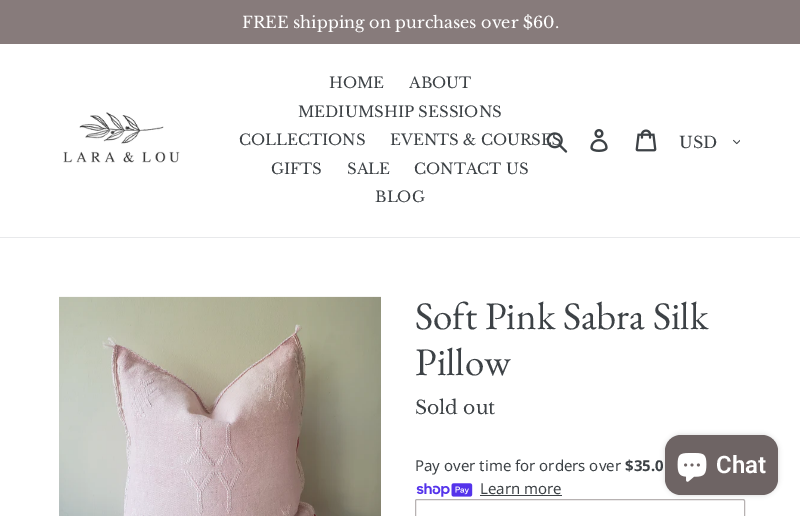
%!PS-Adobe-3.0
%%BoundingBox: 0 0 800 516
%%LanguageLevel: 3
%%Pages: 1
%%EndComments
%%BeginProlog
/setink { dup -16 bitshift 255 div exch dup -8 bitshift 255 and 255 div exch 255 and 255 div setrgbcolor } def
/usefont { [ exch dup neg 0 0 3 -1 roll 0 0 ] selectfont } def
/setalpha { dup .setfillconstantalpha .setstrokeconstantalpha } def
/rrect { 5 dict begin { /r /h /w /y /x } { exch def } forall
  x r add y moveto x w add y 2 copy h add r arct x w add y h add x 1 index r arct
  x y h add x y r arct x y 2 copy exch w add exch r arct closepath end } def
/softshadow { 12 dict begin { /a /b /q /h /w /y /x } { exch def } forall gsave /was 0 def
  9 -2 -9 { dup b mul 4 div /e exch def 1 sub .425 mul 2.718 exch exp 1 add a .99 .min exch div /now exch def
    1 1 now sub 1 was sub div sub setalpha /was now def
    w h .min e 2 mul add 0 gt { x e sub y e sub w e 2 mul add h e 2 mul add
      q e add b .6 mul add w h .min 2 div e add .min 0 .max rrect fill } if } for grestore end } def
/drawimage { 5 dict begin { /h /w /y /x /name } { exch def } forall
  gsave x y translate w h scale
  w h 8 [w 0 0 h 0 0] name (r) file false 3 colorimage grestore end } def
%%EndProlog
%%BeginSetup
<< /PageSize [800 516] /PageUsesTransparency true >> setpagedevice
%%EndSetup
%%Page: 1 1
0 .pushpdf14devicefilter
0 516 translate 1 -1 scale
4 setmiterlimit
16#FFFFFF setink
0 0 800 516 rectfill
16#877B7B setink
0 0 800 44 rectfill
/LibreBaskerville-Regular 16 usefont
16#FFFFFF setink
242 28 moveto (FREE shipping on purchases over $60.) show
16#E8E9EB setink
0 237 800 1 rectfill
(img1.raw) 63 112 117 51 drawimage
/LibreBaskerville-Regular 15 usefont
16#3D4246 setink
[
    [(HOME) 329 88]
    [(ABOUT) 409 88]
    [(MEDIUMSHIP SESSIONS) 298 117]
    [(COLLECTIONS) 239 145]
    [(EVENTS & COURSES) 390 145]
    [(GIFTS) 271 174]
    [(SALE) 347 174]
    [(CONTACT US) 414 174]
    [(BLOG) 375 202]
] { aload pop moveto show } forall
(img2.raw) 546 132 22 21 drawimage
(img3.raw) 590 129 18 23 drawimage
(img4.raw) 635 129 22 23 drawimage
/LibreBaskerville-Regular 16 usefont
679 148 moveto (USD) show
(img5.raw) 733 139 7 6 drawimage
(img6.raw) 59 296 322 220 drawimage
/EBGaramond-Regular 39 usefont
415 329 moveto (Soft Pink Sabra Silk) show
415 375 moveto (Pillow) show
/LibreBaskerville-Regular 18.75 usefont
415 414 moveto (Sold out) show
/NotoSans-Regular 15 usefont
415 471 moveto (Pay over time for orders over) show
/NotoSans-Bold 15 usefont
625 471 moveto ($35.0) show
(img7.raw) 416 483 57 14 drawimage
/NotoSans-Regular 15 usefont
480 494 moveto (Learn more) show
480 495 82 1 rectfill
16#B7B2B2 setink
415.5 499.5 329 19 1.5 rrect stroke
16#000000 setink
665 435 113 60 16 2.5 0.15 softshadow
16#6E6464 setink
665 435 113 60 16 rrect fill
(img8.raw) 677 453 30 29 drawimage
/Roboto-SemiBold 24 usefont
16#FFFFFF setink
716 473 moveto (Chat) show
.poppdf14devicefilter showpage
%%EOF
